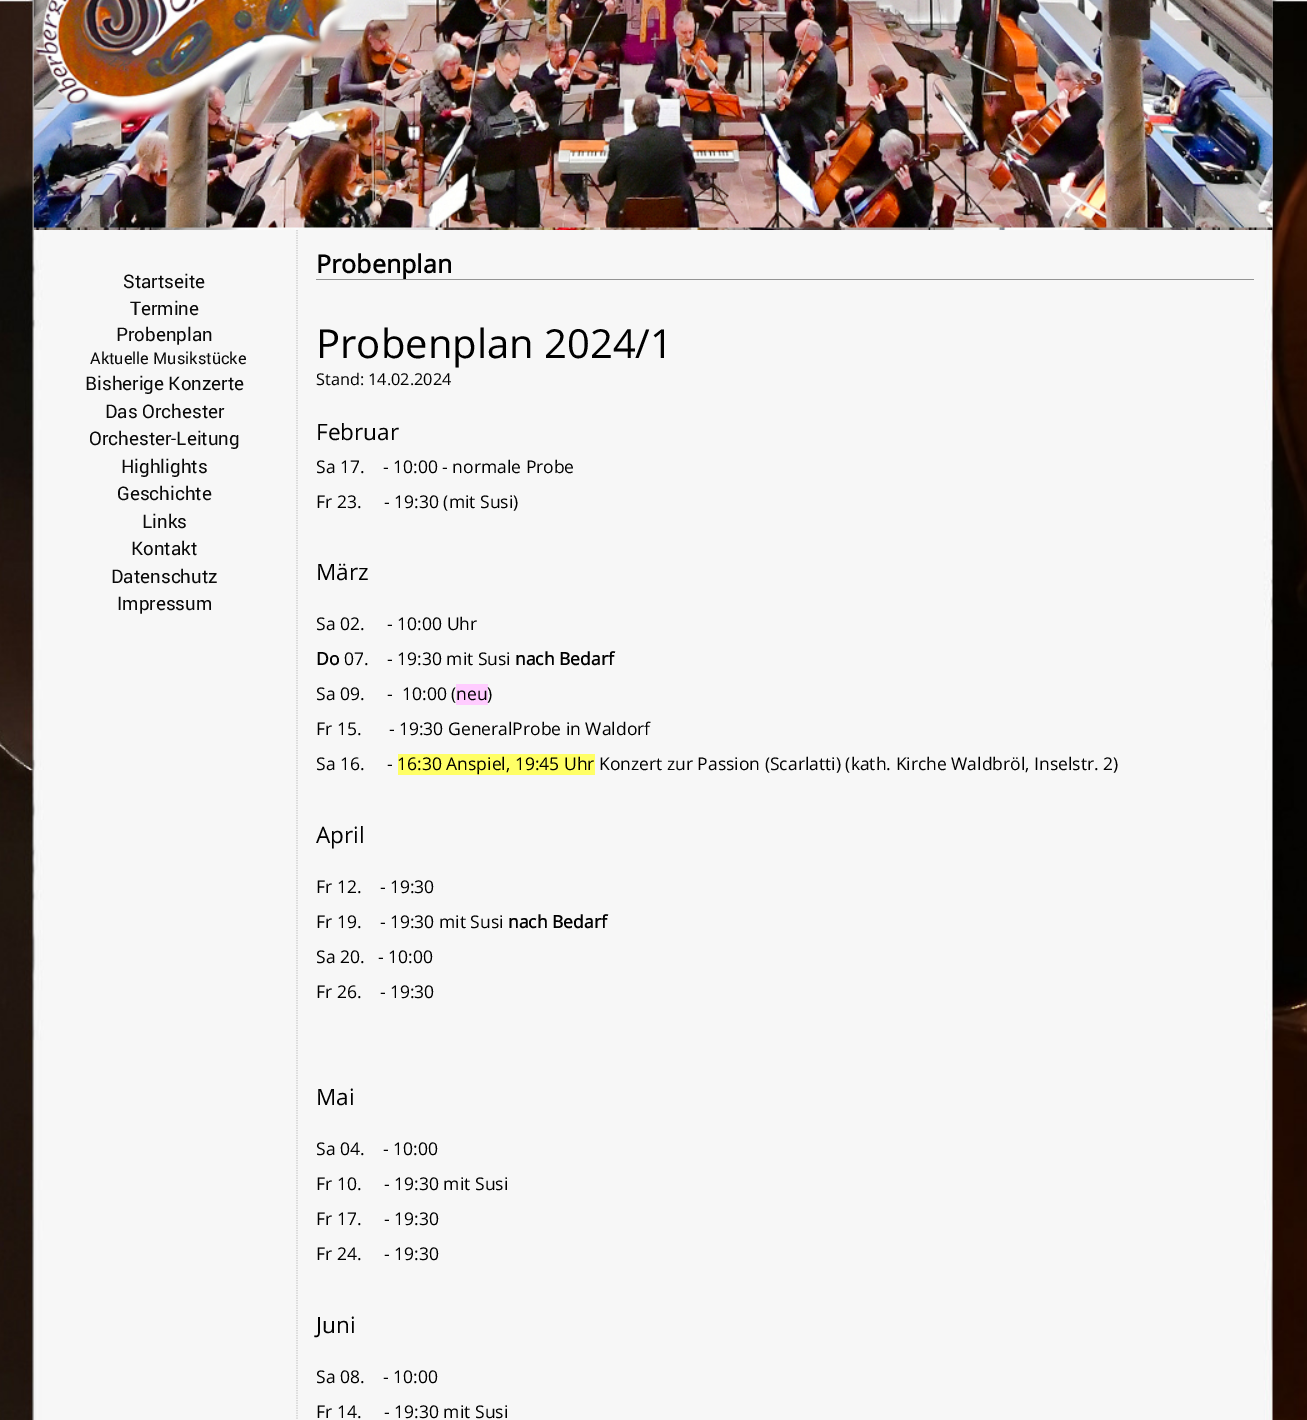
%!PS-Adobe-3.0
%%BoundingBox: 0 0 1307 1420
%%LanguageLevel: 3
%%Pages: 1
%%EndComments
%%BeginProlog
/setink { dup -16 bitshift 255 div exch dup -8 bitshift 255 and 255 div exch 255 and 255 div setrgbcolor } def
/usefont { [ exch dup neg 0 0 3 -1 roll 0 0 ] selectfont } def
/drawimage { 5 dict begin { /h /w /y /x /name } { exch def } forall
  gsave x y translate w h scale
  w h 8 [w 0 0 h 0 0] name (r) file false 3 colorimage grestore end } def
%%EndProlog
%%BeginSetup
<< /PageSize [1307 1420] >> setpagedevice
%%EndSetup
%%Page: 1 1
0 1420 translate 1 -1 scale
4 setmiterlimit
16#FFFFFF setink
0 0 1307 1420 rectfill
(img1.raw) 0 0 1307 1420 drawimage
(img2.raw) 33 0 1240 230 drawimage
/Roboto-Regular 18.75 usefont
16#0A0A0A setink
[
    [(Startseite) 123 288]
    [(Termine) 130 315]
    [(Probenplan) 116 341]
] { aload pop moveto show } forall
/Roboto-Regular 16.25 usefont
90 364 moveto (Aktuelle Musikstücke) show
/Roboto-Regular 18.75 usefont
[
    [(Bisherige Konzerte) 85 390]
    [(Das Orchester) 105 418]
    [(Orchester-Leitung) 89 445]
    [(Highlights) 121 473]
    [(Geschichte) 117 500]
    [(Links) 142 528]
    [(Kontakt) 131 555]
    [(Datenschutz) 111 583]
    [(Impressum) 117 610]
] { aload pop moveto show } forall
16#CCCCCC setink
1.2 setlinewidth
[1.25 1.25] 0 setdash
297 230 moveto 297 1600 lineto stroke
16#949494 setink
316 279 938 1 rectfill
/OpenSans-Bold 25 usefont
16#000000 setink
316 273 moveto (Probenplan) show
/OpenSans-Regular 40 usefont
316 358 moveto (Probenplan 2024/1) show
/OpenSans-Regular 16.25 usefont
316 385 moveto (Stand: 14.02.2024) show
/OpenSans-Regular 22.5 usefont
316 440 moveto (Februar) show
/OpenSans-Regular 17.5 usefont
316 473 moveto (Sa 17.    - 10:00 - normale Probe) show
316 508 moveto (Fr 23.     - 19:30 \(mit Susi\)) show
/OpenSans-Regular 22.5 usefont
316 580 moveto (März) show
/OpenSans-Regular 17.5 usefont
316 630 moveto (Sa 02.     - 10:00 Uhr) show
/OpenSans-Bold 17.5 usefont
316 665 moveto (Do) show
/OpenSans-Regular 17.5 usefont
344 665 moveto (07.    - 19:30 mit Susi) show
/OpenSans-Bold 17.5 usefont
515 665 moveto (nach Bedarf) show
/OpenSans-Regular 17.5 usefont
316 700 moveto (Sa 09.     -  10:00 \() show
16#FFCCFF setink
456 684 32 21 rectfill
16#000000 setink
[
    [(neu\)) 456 700]
    [(Fr 15.      - 19:30 GeneralProbe in Waldorf) 316 735]
    [(Sa 16.     -) 316 770]
] { aload pop moveto show } forall
16#FFFF66 setink
398 754 197 21 rectfill
16#000000 setink
397 770 moveto (16:30 Anspiel, 19:45 Uhr Konzert zur Passion \(Scarlatti\) \(kath. Kirche Waldbröl, Inselstr. 2\)) show
/OpenSans-Regular 22.5 usefont
316 843 moveto (April) show
/OpenSans-Regular 17.5 usefont
316 893 moveto (Fr 12.    - 19:30) show
316 928 moveto (Fr 19.    - 19:30 mit Susi) show
/OpenSans-Bold 17.5 usefont
508 928 moveto (nach Bedarf) show
/OpenSans-Regular 17.5 usefont
316 963 moveto (Sa 20.   - 10:00) show
316 998 moveto (Fr 26.    - 19:30) show
/OpenSans-Regular 22.5 usefont
316 1105 moveto (Mai) show
/OpenSans-Regular 17.5 usefont
[
    [(Sa 04.    - 10:00) 316 1155]
    [(Fr 10.     - 19:30 mit Susi) 316 1190]
    [(Fr 17.     - 19:30) 316 1225]
    [(Fr 24.     - 19:30) 316 1260]
] { aload pop moveto show } forall
/OpenSans-Regular 22.5 usefont
316 1333 moveto (Juni) show
/OpenSans-Regular 17.5 usefont
316 1383 moveto (Sa 08.    - 10:00) show
316 1418 moveto (Fr 14.     - 19:30 mit Susi) show
showpage
%%EOF
